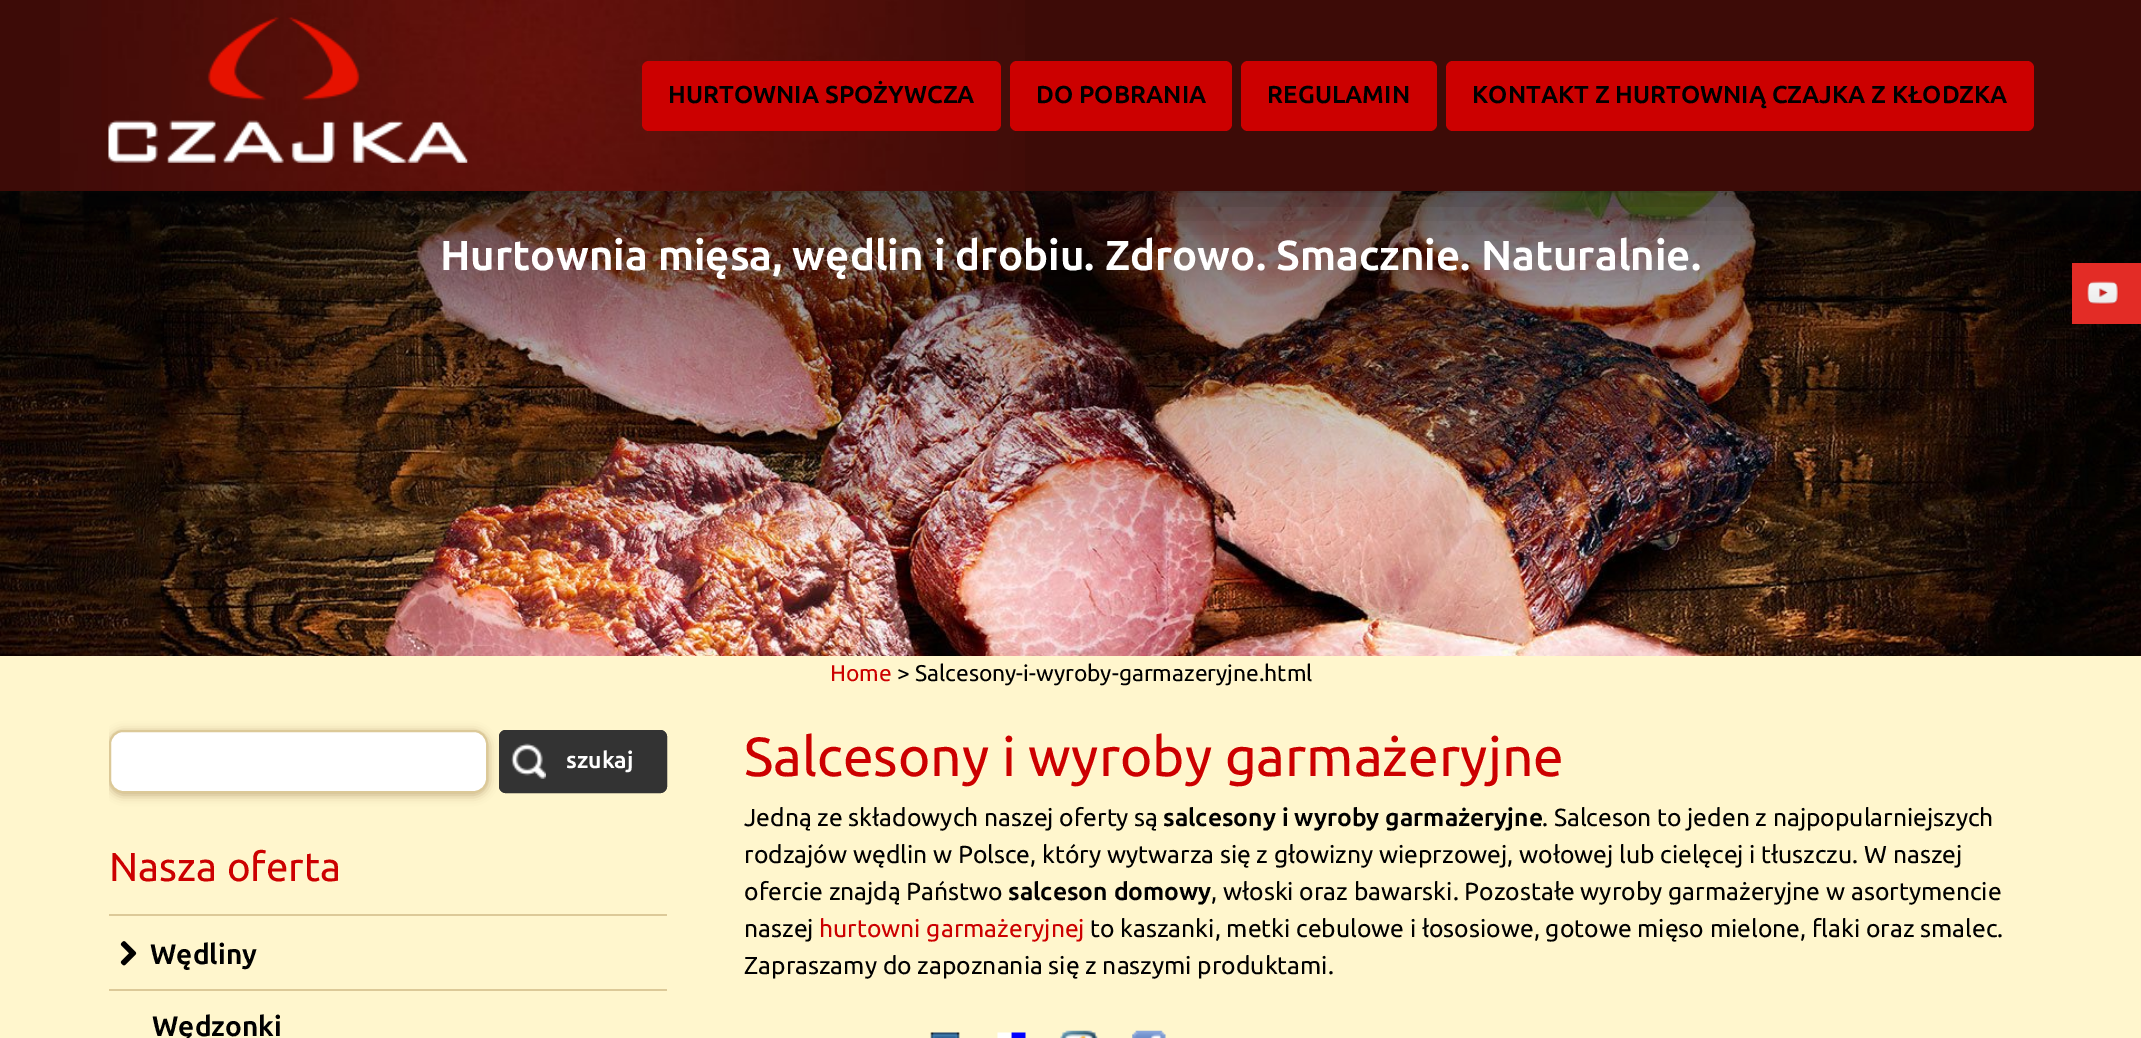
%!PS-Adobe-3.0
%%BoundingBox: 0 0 2141 1038
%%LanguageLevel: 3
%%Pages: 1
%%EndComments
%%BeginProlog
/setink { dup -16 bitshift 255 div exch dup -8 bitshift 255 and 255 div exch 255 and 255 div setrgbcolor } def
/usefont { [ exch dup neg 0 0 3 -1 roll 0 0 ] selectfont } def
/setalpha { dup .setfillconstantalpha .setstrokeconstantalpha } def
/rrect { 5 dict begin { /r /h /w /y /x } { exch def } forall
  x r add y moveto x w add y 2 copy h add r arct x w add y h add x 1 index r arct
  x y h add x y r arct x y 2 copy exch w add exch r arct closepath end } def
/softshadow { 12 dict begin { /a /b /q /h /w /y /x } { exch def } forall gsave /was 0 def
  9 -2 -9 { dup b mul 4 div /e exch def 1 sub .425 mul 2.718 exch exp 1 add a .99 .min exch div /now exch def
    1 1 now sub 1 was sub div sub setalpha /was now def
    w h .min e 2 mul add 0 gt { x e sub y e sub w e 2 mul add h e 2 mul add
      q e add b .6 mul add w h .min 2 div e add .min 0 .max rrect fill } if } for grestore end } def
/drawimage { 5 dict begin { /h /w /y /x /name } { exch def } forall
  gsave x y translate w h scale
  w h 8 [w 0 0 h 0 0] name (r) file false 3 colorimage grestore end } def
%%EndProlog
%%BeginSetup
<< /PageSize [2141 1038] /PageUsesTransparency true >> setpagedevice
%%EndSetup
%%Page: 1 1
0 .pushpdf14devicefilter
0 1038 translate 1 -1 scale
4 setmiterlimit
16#FFFFFF setink
0 0 2141 1038 rectfill
(img3.raw) 0 191 2141 465 drawimage
16#0E0E0F setink
0 9 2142 191 0 28 0.4 softshadow
16#3D0B07 setink
0 0 2141 191 rectfill
(img1.raw) 60 0 965 191 drawimage
(img2.raw) 108 17 360 146 drawimage
16#CC0000 setink
642 61 359 70 7 rrect fill
/Ubuntu-Bold 24.5 usefont
16#000000 setink
668 103 moveto (HURTOWNIA SPOŻYWCZA) show
16#CC0000 setink
1010 61 222 70 7 rrect fill
16#000000 setink
1036 103 moveto (DO POBRANIA) show
16#CC0000 setink
1241 61 196 70 7 rrect fill
16#000000 setink
1267 103 moveto (REGULAMIN) show
16#CC0000 setink
1446 61 588 70 7 rrect fill
16#000000 setink
1472 103 moveto (KONTAKT Z HURTOWNIĄ CZAJKA Z KŁODZKA) show
/Ubuntu-Bold 42 usefont
16#FFFFFF setink
440 270 moveto (Hurtownia mięsa, wędlin i drobiu. Zdrowo. Smacznie. Naturalnie.) show
16#FFF6CD setink
0 656 2141 382 rectfill
/Ubuntu-Regular 22.75 usefont
16#CC0000 setink
830 681 moveto (Home) show
16#000000 setink
897 681 moveto (> Salcesony-i-wyroby-garmazeryjne.html) show
gsave
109 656 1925 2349 rectclip
16#B0946A setink
109 732 379 63 14 5 0.75 softshadow
grestore
16#FFFFFF setink
110 731 377 61 13 rrect gsave fill grestore
16#DCC998 setink
2 setlinewidth
stroke
16#333333 setink
499 730 168 63 7 rrect fill
(img4.raw) 511 743 35 36 drawimage
500 731 166 61 6 rrect stroke
/Ubuntu-Bold 23 usefont
16#FFFFFF setink
566 768 moveto (szukaj) show
/Ubuntu-Regular 40.25 usefont
16#CC0000 setink
109 881 moveto (Nasza oferta) show
16#DCC998 setink
109 914 558 2 rectfill
(img5.raw) 120 941 17 25 drawimage
/Ubuntu-Bold 28 usefont
16#000000 setink
150 964 moveto (Wędliny) show
16#DCC998 setink
109 989 558 2 rectfill
16#000000 setink
152 1036 moveto (Wędzonki) show
/Ubuntu-Regular 55 usefont
16#CC0000 setink
744 776 moveto (Salcesony i wyroby garmażeryjne) show
/Ubuntu-Regular 24.65 usefont
16#000000 setink
744 826 moveto (Jedną ze składowych naszej oferty są) show
/Ubuntu-Bold 24.65 usefont
1163 826 moveto (salcesony i wyroby garmażeryjne) show
/Ubuntu-Regular 24.65 usefont
[
    [(. Salceson to jeden z najpopularniejszych) 1542 826]
    [(rodzajów wędlin w Polsce, który wytwarza się z głowizny wieprzowej, wołowej lub cielęcej i tłuszczu. W naszej) 744 863]
    [(ofercie znajdą Państwo) 744 900]
] { aload pop moveto show } forall
/Ubuntu-Bold 24.65 usefont
1008 900 moveto (salceson domowy) show
/Ubuntu-Regular 24.65 usefont
1211 900 moveto (, włoski oraz bawarski. Pozostałe wyroby garmażeryjne w asortymencie) show
744 937 moveto (naszej) show
16#CC0000 setink
819 937 moveto (hurtowni garmażeryjnej) show
16#000000 setink
1090 937 moveto (to kaszanki, metki cebulowe i łososiowe, gotowe mięso mielone, flaki oraz smalec.) show
744 974 moveto (Zapraszamy do zapoznania się z naszymi produktami.) show
(img6.raw) 930 1032 30 6 drawimage
(img7.raw) 997 1032 29 6 drawimage
(img8.raw) 1060 1030 38 8 drawimage
(img9.raw) 1132 1030 34 8 drawimage
16#E32C26 setink
2072 263 69 61 rectfill
(img10.raw) 2086 281 33 24 drawimage
.poppdf14devicefilter showpage
%%EOF
